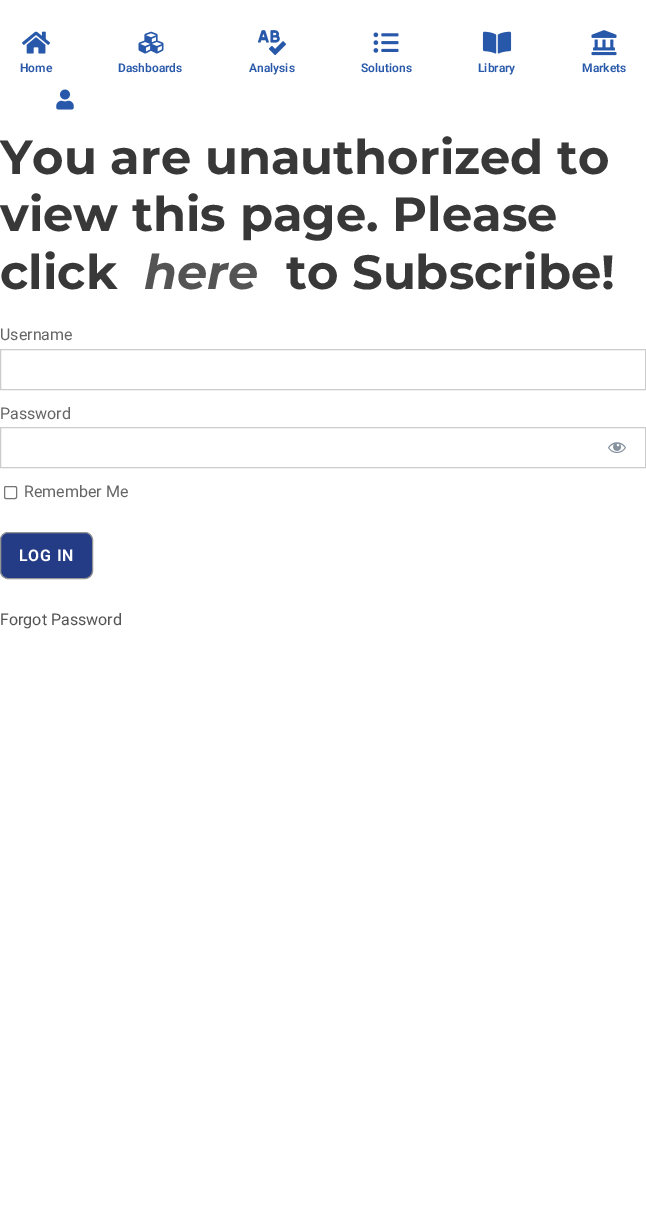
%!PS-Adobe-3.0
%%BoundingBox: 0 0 646 1220
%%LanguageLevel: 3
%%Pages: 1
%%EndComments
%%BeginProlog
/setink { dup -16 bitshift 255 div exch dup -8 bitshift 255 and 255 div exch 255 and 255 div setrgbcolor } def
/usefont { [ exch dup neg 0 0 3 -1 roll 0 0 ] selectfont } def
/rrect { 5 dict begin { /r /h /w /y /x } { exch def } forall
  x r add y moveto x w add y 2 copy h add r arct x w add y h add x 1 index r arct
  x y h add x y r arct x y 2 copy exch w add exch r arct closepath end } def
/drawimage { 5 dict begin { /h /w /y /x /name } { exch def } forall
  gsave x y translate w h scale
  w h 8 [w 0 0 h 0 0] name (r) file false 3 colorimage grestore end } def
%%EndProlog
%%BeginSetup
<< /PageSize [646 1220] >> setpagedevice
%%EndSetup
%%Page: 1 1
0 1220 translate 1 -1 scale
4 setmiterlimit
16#FFFFFF setink
0 0 646 1220 rectfill
(img1.raw) 22 31 29 23 drawimage
/Roboto-SemiBold 12 usefont
16#2858A9 setink
20 72 moveto (Home) show
(img2.raw) 138 31 26 23 drawimage
118 72 moveto (Dashboards) show
(img3.raw) 258 30 28 26 drawimage
249 72 moveto (Analysis) show
(img4.raw) 373 32 26 21 drawimage
361 72 moveto (Solutions) show
(img5.raw) 482 31 30 23 drawimage
478 72 moveto (Library) show
(img6.raw) 591 30 26 26 drawimage
582 72 moveto (Markets) show
(img7.raw) 56 89 18 21 drawimage
/Montserrat-Bold 48 usefont
16#383838 setink
[
    [(You are unauthorized to) 0 174]
    [(view this page. Please) 0 231]
    [(click) 0 289]
] { aload pop moveto show } forall
/Montserrat-BoldItalic 48 usefont
16#545454 setink
144 289 moveto (here) show
/Montserrat-Bold 48 usefont
16#383838 setink
286 289 moveto (to Subscribe!) show
/Roboto-Regular 16 usefont
16#666666 setink
0 340 moveto (Username) show
16#CCCCCC setink
0.5 349.5 645 40 rectstroke
16#666666 setink
0 419 moveto (Password) show
16#CCCCCC setink
0.5 427.5 645 40 rectstroke
(img8.raw) 608 442 18 12 drawimage
16#767676 setink
4.5 486.5 12 12 1.5 rrect stroke
16#666666 setink
24 497 moveto (Remember Me) show
16#233C85 setink
0.5 532.5 92 46 7.5 rrect gsave fill grestore
16#949494 setink
stroke
/Roboto-Bold 16 usefont
16#FFFFFF setink
19 561 moveto 0.75 0 (LOG IN) ashow
/Roboto-Regular 16 usefont
16#545454 setink
0 625 moveto (Forgot Password) show
showpage
%%EOF
